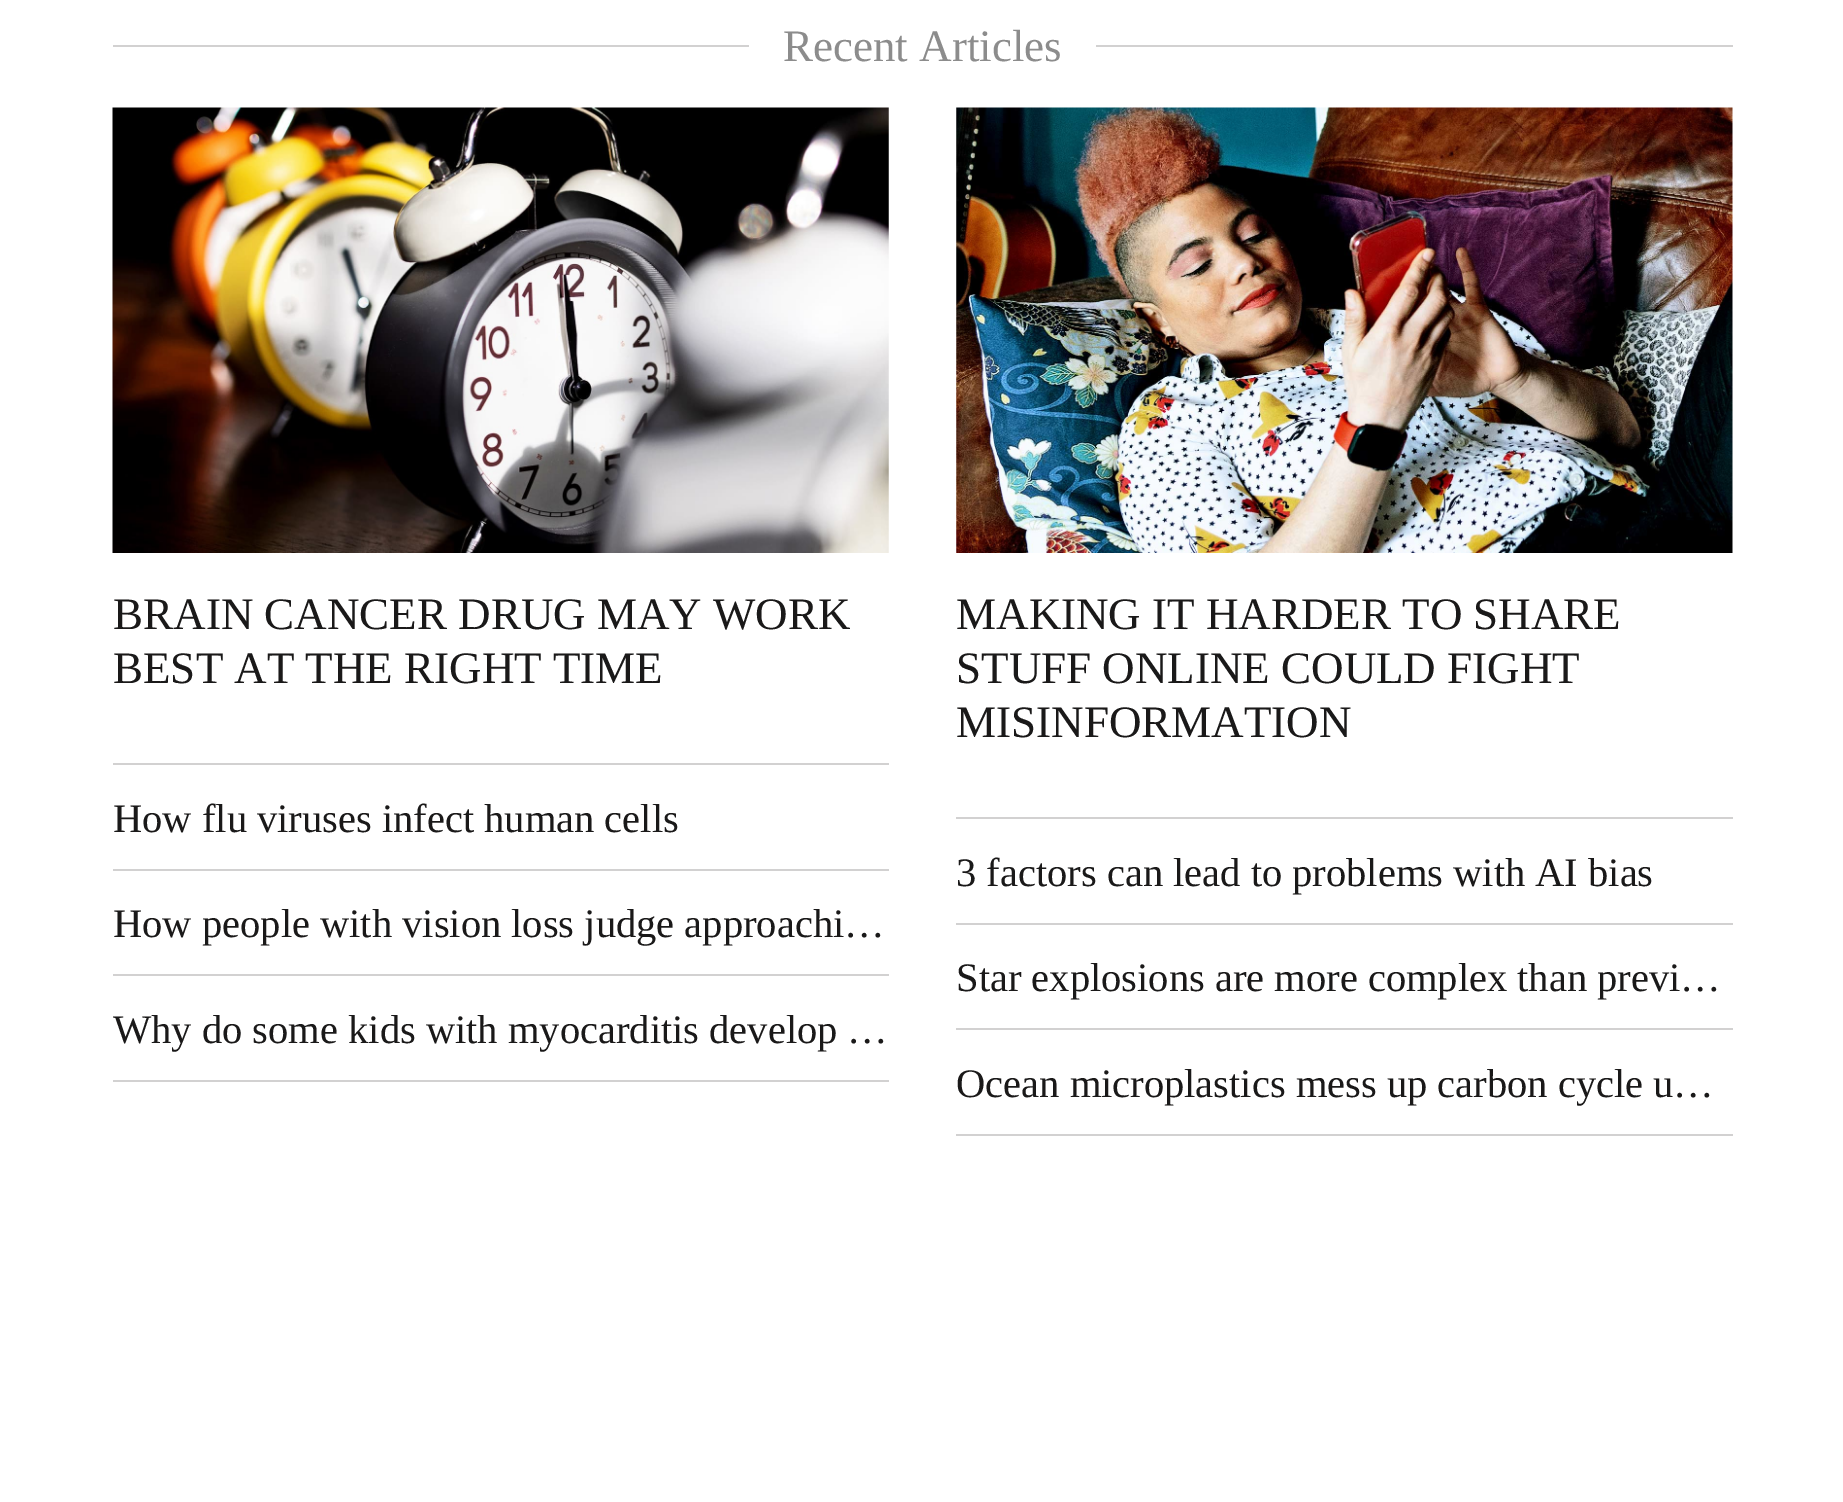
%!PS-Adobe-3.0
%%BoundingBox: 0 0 1843 1502
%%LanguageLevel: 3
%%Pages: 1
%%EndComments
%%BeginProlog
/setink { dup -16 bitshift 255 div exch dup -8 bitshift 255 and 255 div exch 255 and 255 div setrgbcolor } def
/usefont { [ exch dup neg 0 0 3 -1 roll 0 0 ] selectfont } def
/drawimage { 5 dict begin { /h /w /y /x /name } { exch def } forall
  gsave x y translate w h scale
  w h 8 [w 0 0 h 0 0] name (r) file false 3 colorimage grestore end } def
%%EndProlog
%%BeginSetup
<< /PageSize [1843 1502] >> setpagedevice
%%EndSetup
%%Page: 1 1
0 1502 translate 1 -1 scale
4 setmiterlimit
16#FFFFFF setink
0 0 1843 1502 rectfill
16#D2D1D1 setink
113 45 1620 2 rectfill
16#FFFFFF setink
749 45 347 2 rectfill
/LiberationSerif-Regular 45 usefont
16#8C8C8C setink
783 61 moveto (Recent Articles) show
(img1.raw) 112 107 777 446 drawimage
16#1A1919 setink
113 629 moveto (BRAIN CANCER DRUG MAY WORK) show
113 683 moveto (BEST AT THE RIGHT TIME) show
16#D2D1D1 setink
113 763 776 2 rectfill
/LiberationSerif-Regular 40.5 usefont
16#1A1919 setink
113 832 moveto (How flu viruses infect human cells) show
16#D2D1D1 setink
113 869 776 2 rectfill
16#1A1919 setink
113 937 moveto (How people with vision loss judge approachi…) show
16#D2D1D1 setink
113 974 776 2 rectfill
113 1080 776 2 rectfill
16#1A1919 setink
113 1043 moveto (Why do some kids with myocarditis develop …) show
(img2.raw) 956 107 777 446 drawimage
/LiberationSerif-Regular 45 usefont
[
    [(MAKING IT HARDER TO SHARE) 956 629]
    [(STUFF ONLINE COULD FIGHT) 956 683]
    [(MISINFORMATION) 956 737]
] { aload pop moveto show } forall
16#D2D1D1 setink
956 817 777 2 rectfill
/LiberationSerif-Regular 40.5 usefont
16#1A1919 setink
956 886 moveto (3 factors can lead to problems with AI bias) show
16#D2D1D1 setink
956 923 777 2 rectfill
16#1A1919 setink
956 991 moveto (Star explosions are more complex than previ…) show
16#D2D1D1 setink
956 1028 777 2 rectfill
956 1134 777 2 rectfill
16#1A1919 setink
956 1097 moveto (Ocean microplastics mess up carbon cycle u…) show
showpage
%%EOF
